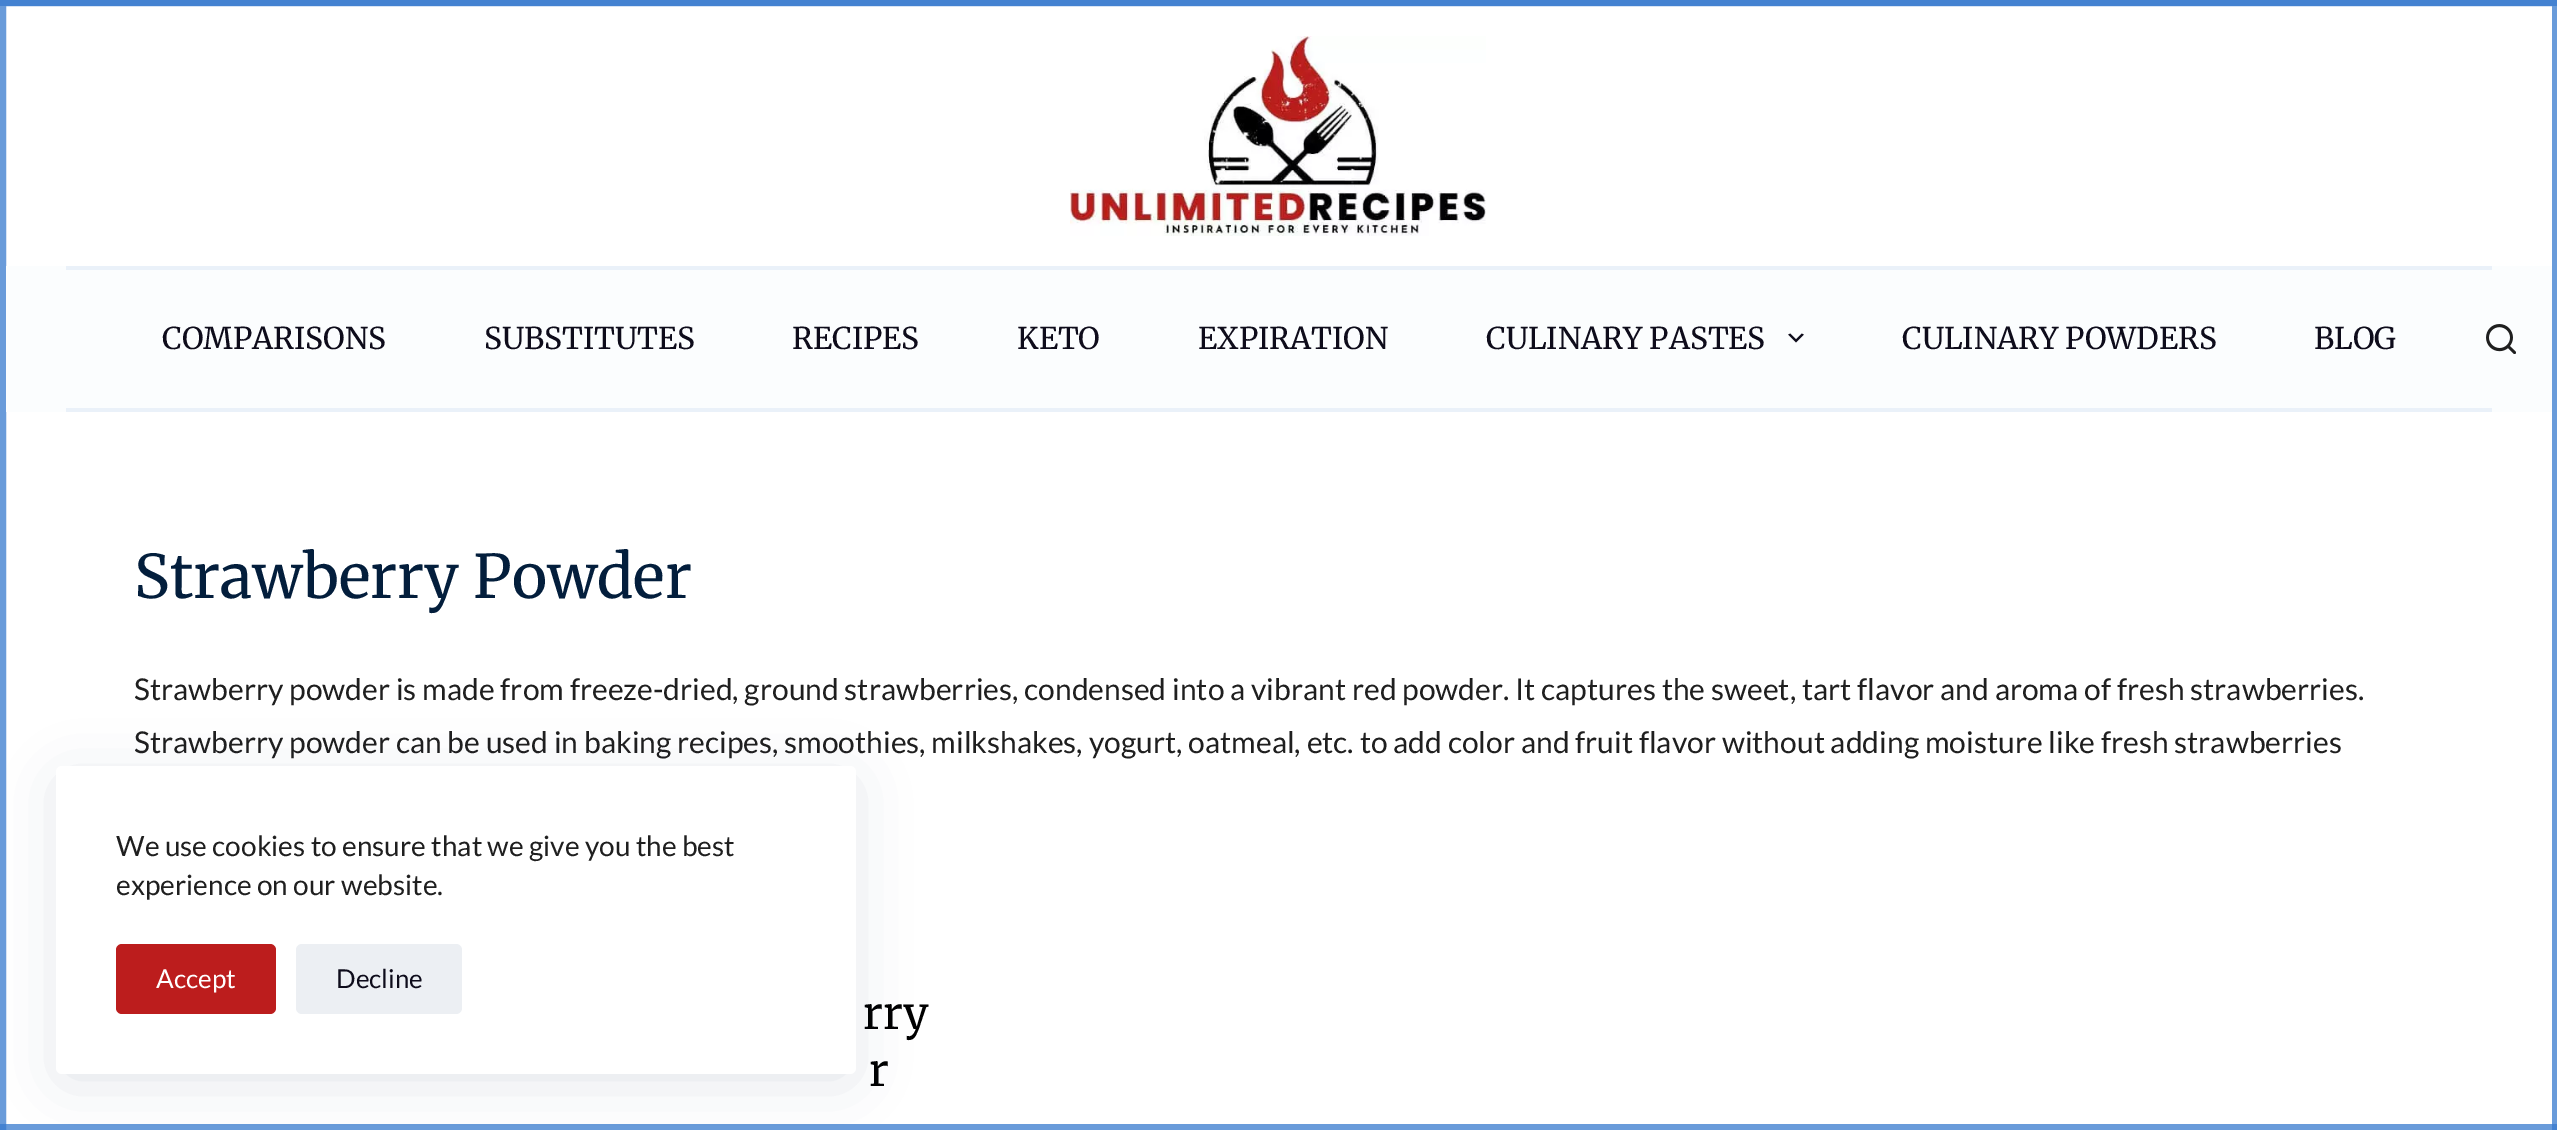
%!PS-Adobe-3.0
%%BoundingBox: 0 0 2557 1130
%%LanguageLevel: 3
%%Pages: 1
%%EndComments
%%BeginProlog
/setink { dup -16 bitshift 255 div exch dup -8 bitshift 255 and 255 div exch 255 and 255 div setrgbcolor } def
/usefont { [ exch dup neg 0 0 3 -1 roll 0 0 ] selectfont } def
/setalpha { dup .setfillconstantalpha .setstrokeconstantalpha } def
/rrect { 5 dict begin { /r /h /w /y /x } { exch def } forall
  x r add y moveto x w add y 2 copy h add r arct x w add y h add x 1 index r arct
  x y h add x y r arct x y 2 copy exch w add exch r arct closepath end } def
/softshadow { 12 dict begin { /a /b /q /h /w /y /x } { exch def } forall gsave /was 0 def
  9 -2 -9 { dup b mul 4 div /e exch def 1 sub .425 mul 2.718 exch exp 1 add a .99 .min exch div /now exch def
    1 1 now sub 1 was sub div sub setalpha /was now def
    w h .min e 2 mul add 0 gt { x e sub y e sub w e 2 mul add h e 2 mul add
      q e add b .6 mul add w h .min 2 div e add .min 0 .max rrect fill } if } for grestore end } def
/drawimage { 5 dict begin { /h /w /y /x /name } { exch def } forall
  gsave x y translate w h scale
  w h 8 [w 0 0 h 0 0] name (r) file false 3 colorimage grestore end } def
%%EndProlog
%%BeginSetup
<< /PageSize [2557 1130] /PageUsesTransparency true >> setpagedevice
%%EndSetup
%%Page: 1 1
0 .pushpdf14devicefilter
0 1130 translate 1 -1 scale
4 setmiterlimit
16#FFFFFF setink
0 0 2557 1130 rectfill
16#699BDA setink
6 setlinewidth
3 3 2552 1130 rectstroke
16#4482D1 setink
0 0 2557 6 rectfill
(img1.raw) 1070 36 416 200 drawimage
[
    [6 266 2546 146 16#FBFDFE]
    [66 266 2426 4 16#EAF1F9]
    [66 408 2426 4 16#EAF1F9]
] { aload pop setink rectfill } forall
/Merriweather-Regular 30 usefont
16#0E0C1B setink
[
    [(COMPARISONS) 162 349]
    [(SUBSTITUTES) 484 349]
    [(RECIPES) 792 349]
    [(KETO) 1017 349]
    [(EXPIRATION) 1198 349]
    [(CULINARY PASTES) 1486 349]
] { aload pop moveto show } forall
(img2.raw) 1788 333 16 10 drawimage
1902 349 moveto (CULINARY POWDERS) show
2314 349 moveto (BLOG) show
(img3.raw) 2486 324 30 30 drawimage
/Merriweather-Regular 60 usefont
16#031E3C setink
134 598 moveto (Strawberry Powder) show
/Lato-Regular 30 usefont
16#1F1F1F setink
134 700 moveto (Strawberry powder is made from freeze-dried, ground strawberries, condensed into a vibrant red powder. It captures the sweet, tart flavor and aroma of fresh strawberries.) show
134 753 moveto (Strawberry powder can be used in baking recipes, smoothies, milkshakes, yogurt, oatmeal, etc. to add color and fruit flavor without adding moisture like fresh strawberries) show
/Merriweather-Regular 44 usefont
16#000000 setink
863 1029 moveto (rry) show
869 1086 moveto (r) show
0.75 setalpha
16#377ACE setink
0 1124 2557 6 rectfill
1 setalpha
16#223865 setink
66 786 780 288 0 30 0.15 softshadow
16#FFFFFF setink
56 766 800 308 6 rrect fill
/Lato-Regular 28 usefont
16#1F1F1F setink
116 856 moveto (We use cookies to ensure that we give you the best) show
116 895 moveto (experience on our website.) show
16#BC1D1D setink
116 944 160 70 6 rrect fill
/Lato-Regular 26 usefont
16#FFFFFF setink
156 988 moveto (Accept) show
16#ECEFF3 setink
296 944 166 70 6 rrect fill
16#0E0C1B setink
336 988 moveto (Decline) show
.poppdf14devicefilter showpage
%%EOF
